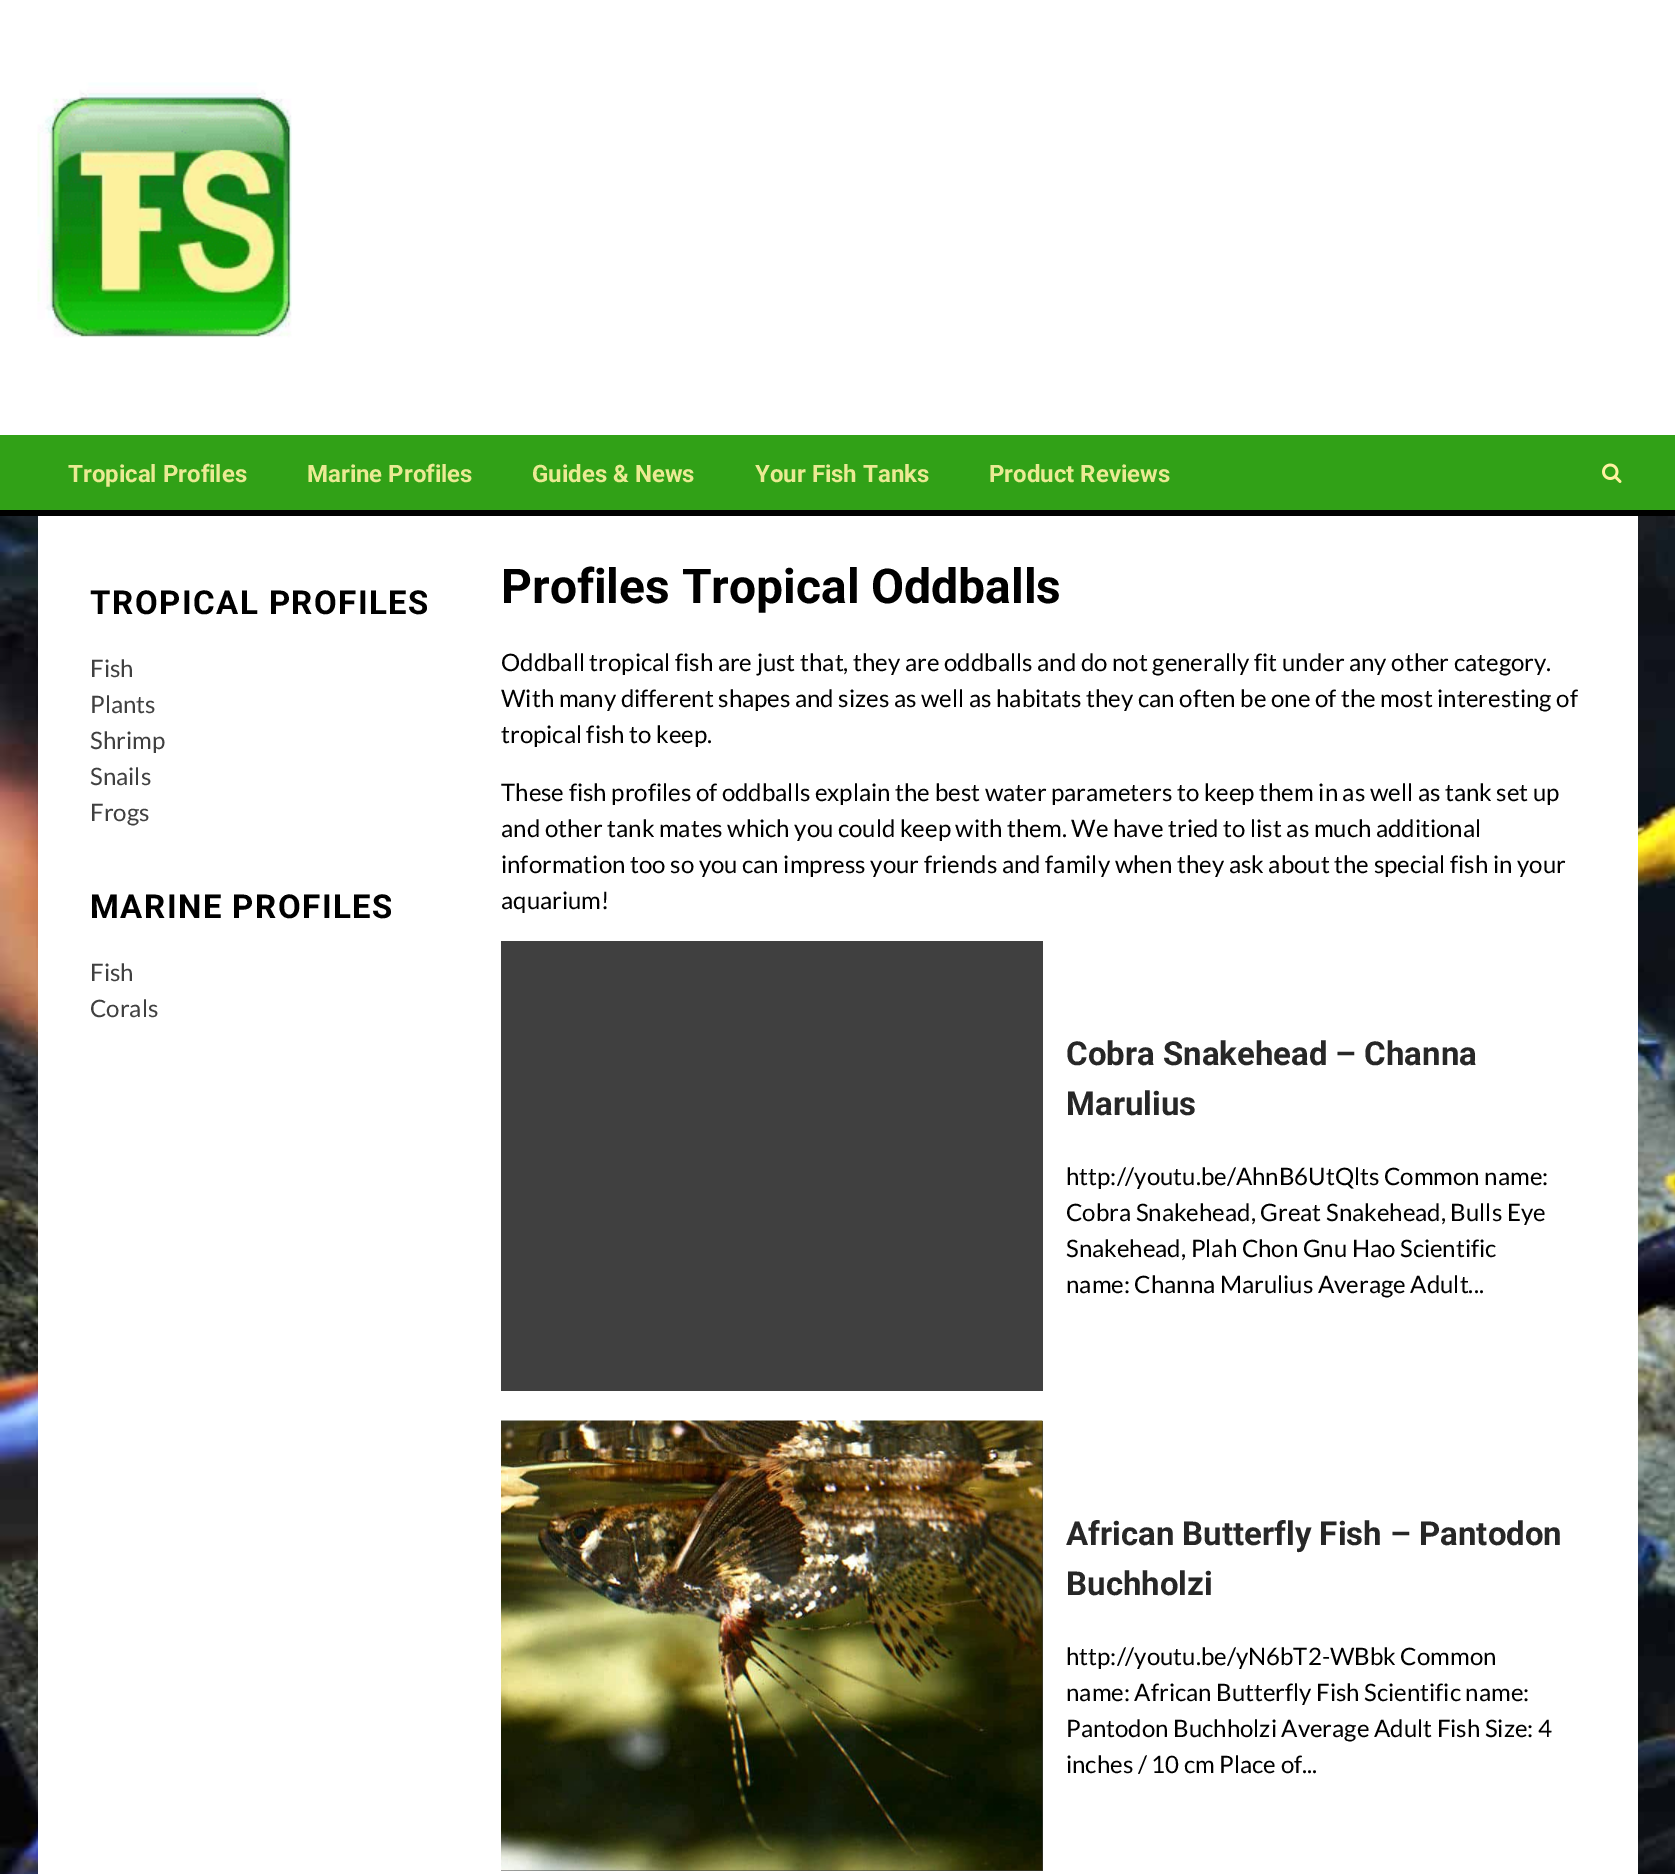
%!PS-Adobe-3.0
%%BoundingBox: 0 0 1675 1874
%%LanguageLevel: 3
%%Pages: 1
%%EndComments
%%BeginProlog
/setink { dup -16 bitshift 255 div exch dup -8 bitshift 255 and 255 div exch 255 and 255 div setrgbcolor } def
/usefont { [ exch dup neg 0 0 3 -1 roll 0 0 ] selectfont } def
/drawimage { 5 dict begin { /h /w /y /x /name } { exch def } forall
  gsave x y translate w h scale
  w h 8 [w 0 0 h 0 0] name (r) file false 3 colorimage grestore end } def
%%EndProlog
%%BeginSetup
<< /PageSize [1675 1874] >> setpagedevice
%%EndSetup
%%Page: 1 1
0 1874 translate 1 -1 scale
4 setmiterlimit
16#FFFFFF setink
0 0 1675 1874 rectfill
(img1.raw) 0 516 1675 1358 drawimage
(img2.raw) 37 82 255 256 drawimage
16#31A117 setink
0 435 1675 75 rectfill
16#000000 setink
0 510 1675 6 rectfill
/Roboto-Bold 24 usefont
16#EAEA93 setink
[
    [(Tropical Profiles) 68 482]
    [(Marine Profiles) 307 482]
    [(Guides & News) 532 482]
    [(Your Fish Tanks) 755 482]
    [(Product Reviews) 989 482]
] { aload pop moveto show } forall
(img3.raw) 1602 463 20 20 drawimage
16#FFFFFF setink
38 516 1600 1358 rectfill
/Roboto-Bold 33 usefont
16#000000 setink
90 614 moveto 1.5 0 (TROPICAL PROFILES) ashow
/Lato-Regular 24 usefont
16#404040 setink
[
    [(Fish) 90 677]
    [(Plants) 90 713]
    [(Shrimp) 90 749]
    [(Snails) 90 785]
    [(Frogs) 90 821]
] { aload pop moveto show } forall
/Roboto-Bold 33 usefont
16#000000 setink
90 918 moveto 1.5 0 (MARINE PROFILES) ashow
/Lato-Regular 24 usefont
16#404040 setink
90 981 moveto (Fish) show
90 1017 moveto (Corals) show
/Roboto-Bold 48 usefont
16#000000 setink
501 603 moveto (Profiles Tropical Oddballs) show
/Lato-Regular 24 usefont
[
    [(Oddball tropical fish are just that, they are oddballs and do not generally fit under any other category.) 501 671]
    [(With many different shapes and sizes as well as habitats they can often be one of the most interesting of) 501 707]
    [(tropical fish to keep.) 501 743]
    [(These fish profiles of oddballs explain the best water parameters to keep them in as well as tank set up) 501 801]
    [(and other tank mates which you could keep with them. We have tried to list as much additional) 501 837]
    [(information too so you can impress your friends and family when they ask about the special fish in your) 501 873]
    [(aquarium!) 501 909]
] { aload pop moveto show } forall
16#404040 setink
501 941 542 450 rectfill
/Roboto-Bold 33 usefont
16#272727 setink
1066 1065 moveto (Cobra Snakehead – Channa) show
1066 1115 moveto (Marulius) show
/Lato-Regular 24 usefont
16#000000 setink
[
    [(http://youtu.be/AhnB6UtQlts Common name:) 1066 1185]
    [(Cobra Snakehead, Great Snakehead, Bulls Eye) 1066 1221]
    [(Snakehead, Plah Chon Gnu Hao Scientific) 1066 1257]
    [(name: Channa Marulius Average Adult...) 1066 1293]
] { aload pop moveto show } forall
16#404040 setink
501 1421 542 450 rectfill
(img4.raw) 501 1420 542 451 drawimage
/Roboto-Bold 33 usefont
16#272727 setink
1066 1545 moveto (African Butterfly Fish – Pantodon) show
1066 1595 moveto (Buchholzi) show
/Lato-Regular 24 usefont
16#000000 setink
[
    [(http://youtu.be/yN6bT2-WBbk Common) 1066 1665]
    [(name: African Butterfly Fish Scientific name:) 1066 1701]
    [(Pantodon Buchholzi Average Adult Fish Size: 4) 1066 1737]
    [(inches / 10 cm Place of...) 1066 1773]
] { aload pop moveto show } forall
showpage
%%EOF
